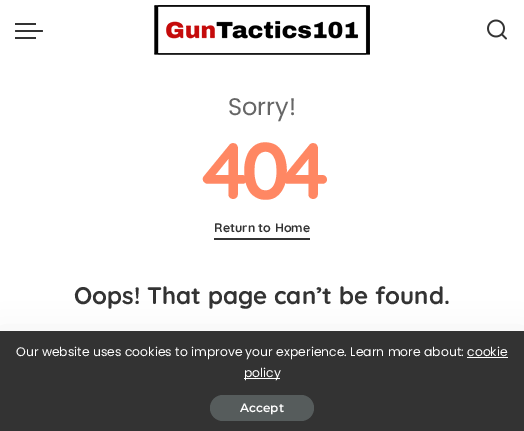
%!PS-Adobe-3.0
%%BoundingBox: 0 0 524 431
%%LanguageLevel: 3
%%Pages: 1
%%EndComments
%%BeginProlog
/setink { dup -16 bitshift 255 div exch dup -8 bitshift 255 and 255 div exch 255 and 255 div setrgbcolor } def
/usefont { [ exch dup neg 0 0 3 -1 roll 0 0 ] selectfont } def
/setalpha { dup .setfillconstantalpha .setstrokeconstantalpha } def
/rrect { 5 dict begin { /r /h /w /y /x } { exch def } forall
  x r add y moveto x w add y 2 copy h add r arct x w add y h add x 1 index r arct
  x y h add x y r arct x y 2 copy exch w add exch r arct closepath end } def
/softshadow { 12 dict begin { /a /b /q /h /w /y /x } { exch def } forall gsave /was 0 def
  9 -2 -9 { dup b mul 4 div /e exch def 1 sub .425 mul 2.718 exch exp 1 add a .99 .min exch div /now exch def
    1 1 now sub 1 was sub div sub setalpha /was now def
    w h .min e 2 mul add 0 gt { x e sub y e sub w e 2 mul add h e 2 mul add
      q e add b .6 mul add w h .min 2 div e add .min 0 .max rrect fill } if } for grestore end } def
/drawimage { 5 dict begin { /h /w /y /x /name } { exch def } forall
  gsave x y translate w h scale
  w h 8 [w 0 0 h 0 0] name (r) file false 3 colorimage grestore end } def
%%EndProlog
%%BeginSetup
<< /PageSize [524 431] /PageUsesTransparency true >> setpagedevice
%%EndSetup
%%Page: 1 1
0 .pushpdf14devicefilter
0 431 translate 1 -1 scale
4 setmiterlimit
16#FFFFFF setink
0 0 524 431 rectfill
16#333333 setink
15 30 28 2 1 rrect fill
15 23 21 2 rectfill
15 37 21 2 rectfill
(img1.raw) 154 5 216 50 drawimage
(img2.raw) 487 19 20 21 drawimage
/Poppins-Regular 24 usefont
16#666666 setink
228 115 moveto (Sorry!) show
/Quicksand-Bold 80 usefont
16#FF8763 setink
202 199 moveto -8 0 (404) ashow
16#333333 setink
214 238 96 2 rectfill
/Quicksand-Bold 12.4 usefont
214 232 moveto (Return to Home) show
/Quicksand-Bold 24 usefont
74 304 moveto (Oops! That page can’t be found.) show
16#000000 setink
0 335 524 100 0 15 0.07 softshadow
16#333333 setink
0 331 524 100 rectfill
/Poppins-Regular 12.4 usefont
16#FFFFFF setink
16 356 moveto (Our website uses cookies to improve your experience. Learn more about: cookie) show
244 378 36 1 rectfill
244 377 moveto (policy) show
467 357 41 1 rectfill
16#565C5C setink
210 395 104 26 13 rrect fill
/Montserrat-SemiBold 12 usefont
16#FFFFFF setink
240 412 moveto (Accept) show
.poppdf14devicefilter showpage
%%EOF
